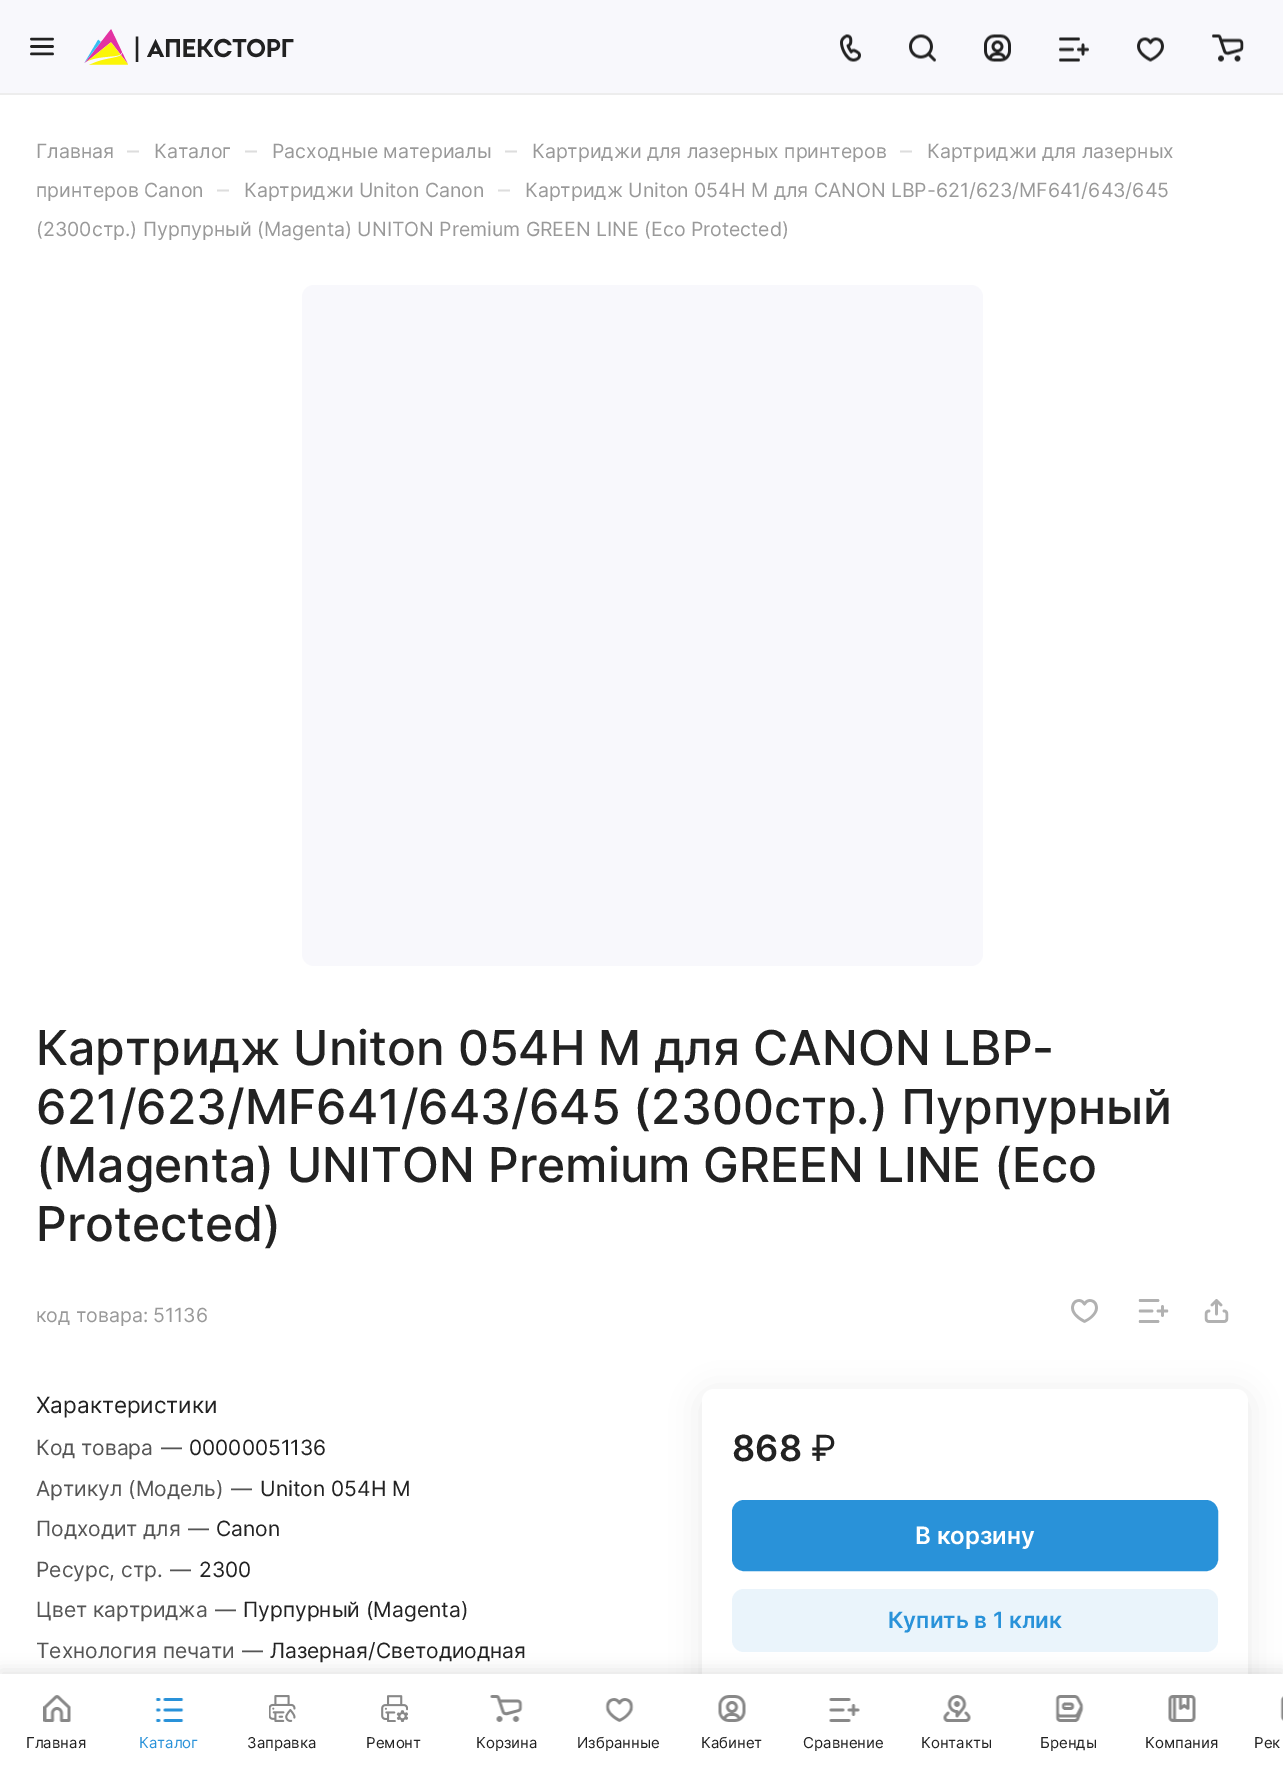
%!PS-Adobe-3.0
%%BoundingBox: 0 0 1283 1765
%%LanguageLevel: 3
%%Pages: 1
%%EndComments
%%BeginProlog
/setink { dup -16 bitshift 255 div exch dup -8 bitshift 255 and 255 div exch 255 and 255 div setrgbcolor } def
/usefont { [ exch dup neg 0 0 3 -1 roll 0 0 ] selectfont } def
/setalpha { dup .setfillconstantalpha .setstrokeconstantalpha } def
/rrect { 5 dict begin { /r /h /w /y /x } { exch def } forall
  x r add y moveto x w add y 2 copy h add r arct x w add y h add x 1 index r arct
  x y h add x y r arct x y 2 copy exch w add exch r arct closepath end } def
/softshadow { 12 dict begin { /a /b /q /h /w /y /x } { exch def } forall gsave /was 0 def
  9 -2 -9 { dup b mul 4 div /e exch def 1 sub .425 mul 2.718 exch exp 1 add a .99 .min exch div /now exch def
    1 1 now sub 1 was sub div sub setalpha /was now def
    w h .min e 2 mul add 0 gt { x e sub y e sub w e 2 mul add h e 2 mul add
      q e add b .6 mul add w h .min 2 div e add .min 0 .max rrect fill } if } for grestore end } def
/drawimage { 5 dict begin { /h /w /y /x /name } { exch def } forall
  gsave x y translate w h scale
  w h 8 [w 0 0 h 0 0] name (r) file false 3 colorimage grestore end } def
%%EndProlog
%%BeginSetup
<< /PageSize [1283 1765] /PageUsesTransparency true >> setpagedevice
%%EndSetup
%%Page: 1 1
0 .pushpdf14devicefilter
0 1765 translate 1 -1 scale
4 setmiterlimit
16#FFFFFF setink
0 0 1283 1765 rectfill
16#EDEDED setink
0 93 1283 2 rectfill
16#F8F8FC setink
0 0 1283 93 rectfill
(img1.raw) 30 37 24 19 drawimage
(img2.raw) 84 29 210 36 drawimage
(img3.raw) 840 34 21 28 drawimage
(img4.raw) 909 34 27 28 drawimage
(img5.raw) 984 34 27 28 drawimage
(img6.raw) 1059 37 30 25 drawimage
(img7.raw) 1137 37 27 25 drawimage
(img8.raw) 1212 34 32 28 drawimage
/Inter-Regular 19.5 usefont
16#999999 setink
36 158 moveto (Главная) show
/Inter-Regular 24 usefont
16#DDDDDD setink
127 159 moveto (–) show
/Inter-Regular 19.5 usefont
16#999999 setink
154 158 moveto (Каталог) show
/Inter-Regular 24 usefont
16#DDDDDD setink
245 159 moveto (–) show
/Inter-Regular 19.5 usefont
16#999999 setink
272 158 moveto (Расходные материалы) show
/Inter-Regular 24 usefont
16#DDDDDD setink
505 159 moveto (–) show
/Inter-Regular 19.5 usefont
16#999999 setink
532 158 moveto (Картриджи для лазерных принтеров) show
/Inter-Regular 24 usefont
16#DDDDDD setink
900 159 moveto (–) show
/Inter-Regular 19.5 usefont
16#999999 setink
927 158 moveto (Картриджи для лазерных) show
36 197 moveto (принтеров Canon) show
/Inter-Regular 24 usefont
16#DDDDDD setink
217 198 moveto (–) show
/Inter-Regular 19.5 usefont
16#999999 setink
244 197 moveto (Картриджи Uniton Canon) show
/Inter-Regular 24 usefont
16#DDDDDD setink
498 198 moveto (–) show
/Inter-Regular 19.5 usefont
16#999999 setink
525 197 moveto (Картридж Uniton 054H M для CANON LBP-621/623/MF641/643/645) show
36 236 moveto (\(2300стр.\) Пурпурный \(Magenta\) UNITON Premium GREEN LINE \(Eco Protected\)) show
16#F8F8FC setink
302 285 681 681 12 rrect fill
/Inter-Medium 48 usefont
16#222222 setink
[
    [(Картридж Uniton 054H M для CANON LBP-) 36 1065]
    [(621/623/MF641/643/645 \(2300стр.\) Пурпурный) 36 1124]
    [(\(Magenta\) UNITON Premium GREEN LINE \(Eco) 36 1182]
    [(Protected\)) 36 1241]
] { aload pop moveto show } forall
/Inter-Regular 19.5 usefont
16#999999 setink
36 1322 moveto (код товара: 51136) show
(img9.raw) 1071 1299 27 24 drawimage
(img10.raw) 1138 1299 31 24 drawimage
(img11.raw) 1204 1299 25 24 drawimage
/Inter-Regular 22.5 usefont
16#222222 setink
36 1413 moveto (Характеристики) show
/Inter-Regular 21 usefont
16#555555 setink
36 1455 moveto (Код товара) show
161 1455 moveto (—) show
16#222222 setink
189 1455 moveto (00000051136) show
16#555555 setink
36 1496 moveto (Артикул \(Модель\)) show
231 1496 moveto (—) show
16#222222 setink
260 1496 moveto (Uniton 054H M) show
16#555555 setink
36 1536 moveto (Подходит для) show
188 1536 moveto (—) show
16#222222 setink
216 1536 moveto (Canon) show
16#555555 setink
36 1577 moveto (Ресурс, стр.) show
170 1577 moveto (—) show
16#222222 setink
199 1577 moveto (2300) show
16#555555 setink
36 1617 moveto (Цвет картриджа) show
215 1617 moveto (—) show
16#222222 setink
243 1617 moveto (Пурпурный \(Magenta\)) show
16#555555 setink
36 1658 moveto (Технология печати) show
242 1658 moveto (—) show
16#222222 setink
270 1658 moveto (Лазерная/Светодиодная) show
702 1394 546 298 12 15 0.1 softshadow
16#FFFFFF setink
702 1389 546 299 12 rrect fill
/Inter-SemiBold 36 usefont
16#222222 setink
732 1461 moveto (868) show
/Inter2-Regular 36 usefont
811 1461 moveto (₽) show
16#2992D9 setink
733 1501 484 69 11 rrect gsave fill grestore
2 setlinewidth
stroke
/Inter-SemiBold 24 usefont
16#FFFFFF setink
915 1544 moveto (В корзину) show
16#EAF4FB setink
732 1589 486 63 12 rrect fill
/Inter-SemiBold 22.5 usefont
16#2992D9 setink
888 1628 moveto (Купить в 1 клик) show
16#000000 setink
0 1670 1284 91 0 7.5 0.1 softshadow
16#FFFFFF setink
0 1674 1283 91 rectfill
(img12.raw) 43 1695 28 27 drawimage
/Inter-Regular 15 usefont
16#222222 setink
26 1748 moveto (Главная) show
(img13.raw) 155 1698 29 24 drawimage
16#2992D9 setink
139 1748 moveto (Каталог) show
(img14.raw) 269 1695 27 27 drawimage
16#222222 setink
247 1748 moveto (Заправка) show
(img15.raw) 381 1695 27 27 drawimage
366 1748 moveto (Ремонт) show
(img16.raw) 490 1695 33 27 drawimage
476 1748 moveto (Корзина) show
(img17.raw) 605 1698 29 24 drawimage
577 1748 moveto (Избранные) show
(img18.raw) 718 1695 28 27 drawimage
701 1748 moveto (Кабинет) show
(img19.raw) 829 1698 31 24 drawimage
803 1748 moveto (Сравнение) show
(img20.raw) 943 1695 28 27 drawimage
921 1748 moveto (Контакты) show
(img21.raw) 1055 1695 29 27 drawimage
1040 1748 moveto (Бренды) show
(img22.raw) 1168 1695 28 27 drawimage
1145 1748 moveto (Компания) show
(img23.raw) 1280 1696 3 25 drawimage
1254 1748 moveto (Рек) show
.poppdf14devicefilter showpage
%%EOF
